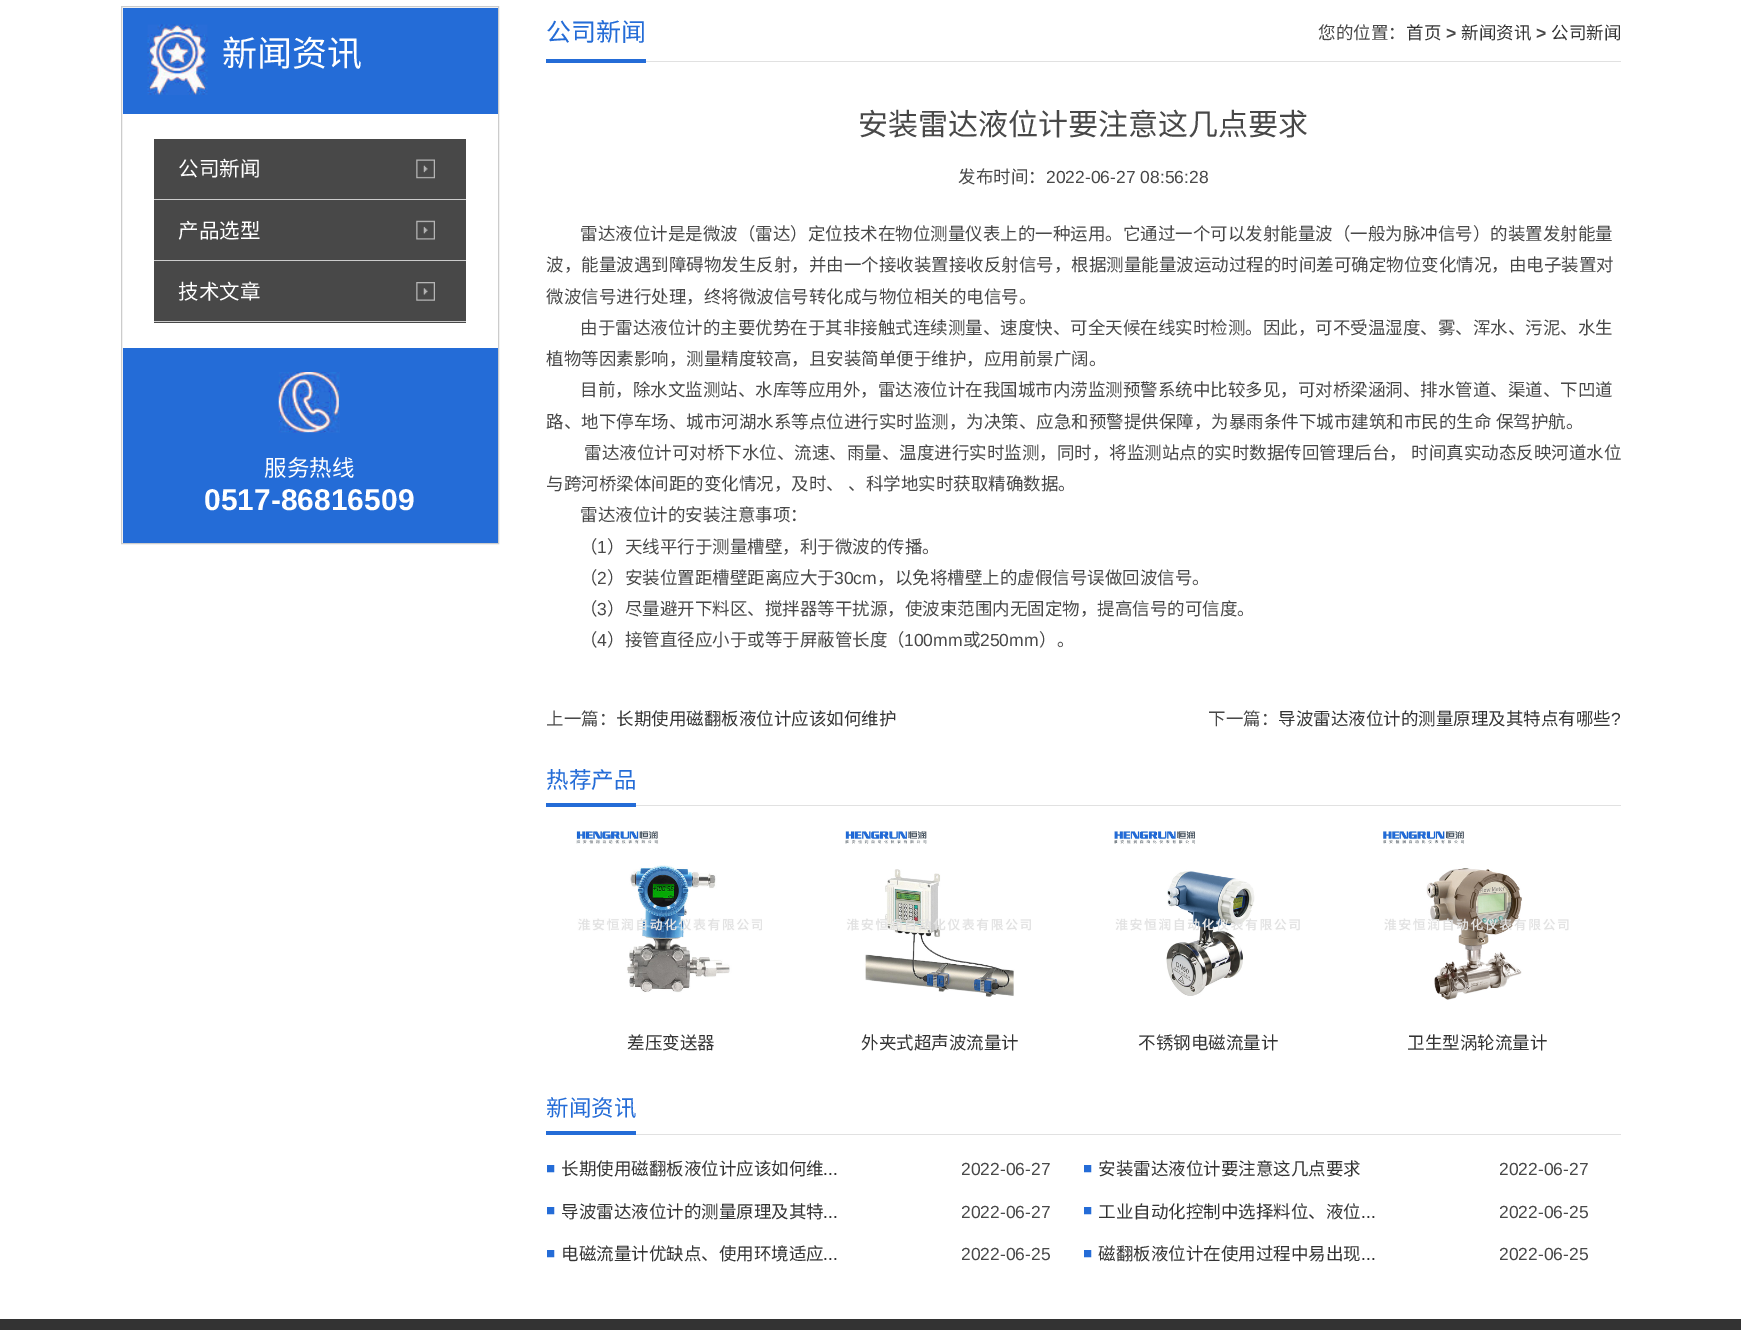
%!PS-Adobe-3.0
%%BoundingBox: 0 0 1741 1330
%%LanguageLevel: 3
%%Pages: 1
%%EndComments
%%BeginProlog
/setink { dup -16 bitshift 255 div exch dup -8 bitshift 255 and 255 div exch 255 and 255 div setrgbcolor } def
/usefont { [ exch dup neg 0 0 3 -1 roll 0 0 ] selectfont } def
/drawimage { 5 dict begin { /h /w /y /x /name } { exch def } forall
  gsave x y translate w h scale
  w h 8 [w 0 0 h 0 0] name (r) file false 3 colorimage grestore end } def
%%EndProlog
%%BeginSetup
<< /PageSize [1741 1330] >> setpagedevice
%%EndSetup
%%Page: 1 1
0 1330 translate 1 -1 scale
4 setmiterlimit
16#FFFFFF setink
0 0 1741 1330 rectfill
16#CCCCCC setink
121.5 6.5 377 537 rectstroke
16#246CD7 setink
123 8 375 106 rectfill
(img1.raw) 147 24 61 71 drawimage
/NotoSansCJKSC-Regular 35 usefont
16#FFFFFF setink
222 66 moveto (新闻资讯) show
16#484848 setink
154 139 312 60 rectfill
(img2.raw) 416 159 19 20 drawimage
16#CCCCCC setink
154 199 312 1 rectfill
/NotoSansCJKSC-Regular 20.5 usefont
16#FFFFFF setink
178 176 moveto (公司新闻) show
16#484848 setink
154 200 312 60 rectfill
(img3.raw) 416 220 19 20 drawimage
16#CCCCCC setink
154 260 312 1 rectfill
16#FFFFFF setink
178 238 moveto (产品选型) show
16#484848 setink
154 261 312 62 rectfill
(img4.raw) 416 282 19 19 drawimage
16#CCCCCC setink
154 321 312 1 rectfill
16#FFFFFF setink
178 299 moveto (技术文章) show
16#246CD7 setink
123 348 375 195 rectfill
(img5.raw) 278 372 62 61 drawimage
/NotoSansCJKSC-Regular 22.5 usefont
16#FFFFFF setink
264 476 moveto (服务热线) show
/LiberationSans-Bold 30 usefont
204 510 moveto (0517-86816509) show
16#E1E1E1 setink
646 61 975 1 rectfill
/NotoSansCJKSC-Regular 25 usefont
16#246CD7 setink
546 41 moveto (公司新闻) show
546 59 100 4 rectfill
/NotoSansCJKSC-Regular 17.5 usefont
16#484848 setink
1318 39 moveto (您的位置：) show
16#333333 setink
1406 39 moveto (首页) show
/LiberationSans-Bold 17.5 usefont
16#484848 setink
1446 39 moveto (>) show
/NotoSansCJKSC-Regular 17.5 usefont
16#333333 setink
1461 39 moveto (新闻资讯) show
/LiberationSans-Bold 17.5 usefont
16#484848 setink
1536 39 moveto (>) show
/NotoSansCJKSC-Regular 17.5 usefont
16#333333 setink
1551 39 moveto (公司新闻) show
/NotoSansCJKSC-Regular 30 usefont
16#484848 setink
858 135 moveto (安装雷达液位计要注意这几点要求) show
/NotoSansCJKSC-Regular 17.5 usefont
958 183 moveto (发布时间：) show
/LiberationSans-Regular 17.5 usefont
1046 183 moveto (2022-06-27 08:56:28) show
/NotoSansCJKSC-Regular 17.5 usefont
[
    [(雷达液位计是是微波（雷达）定位技术在物位测量仪表上的一种运用。它通过一个可以发射能量波（一般为脉冲信号）的装置发射能量) 580 240]
    [(波，能量波遇到障碍物发生反射，并由一个接收装置接收反射信号，根据测量能量波运动过程的时间差可确定物位变化情况，由电子装置对) 546 271]
    [(微波信号进行处理，终将微波信号转化成与物位相关的电信号。) 546 303]
    [(由于雷达液位计的主要优势在于其非接触式连续测量、速度快、可全天候在线实时检测。因此，可不受温湿度、雾、浑水、污泥、水生) 580 334]
    [(植物等因素影响，测量精度较高，且安装简单便于维护，应用前景广阔。) 546 365]
    [(目前，除水文监测站、水库等应用外，雷达液位计在我国城市内涝监测预警系统中比较多见，可对桥梁涵洞、排水管道、渠道、下凹道) 580 396]
] { aload pop moveto show } forall
546 428 moveto 1 0 32 (路、地下停车场、城市河湖水系等点位进行实时监测，为决策、应急和预警提供保障，为暴雨条件下城市建筑和市民的生命 保驾护航。) widthshow
584 459 moveto 1 0 32 (雷达液位计可对桥下水位、流速、雨量、温度进行实时监测，同时，将监测站点的实时数据传回管理后台， 时间真实动态反映河道水位) widthshow
546 490 moveto 1 0 32 (与跨河桥梁体间距的变化情况，及时、 、科学地实时获取精确数据。) widthshow
580 521 moveto (雷达液位计的安装注意事项：) show
580 553 moveto (（) show
/LiberationSans-Regular 17.5 usefont
597 553 moveto (1) show
/NotoSansCJKSC-Regular 17.5 usefont
607 553 moveto (）天线平行于测量槽壁，利于微波的传播。) show
580 584 moveto (（) show
/LiberationSans-Regular 17.5 usefont
597 584 moveto (2) show
/NotoSansCJKSC-Regular 17.5 usefont
607 584 moveto (）安装位置距槽壁距离应大于) show
/LiberationSans-Regular 17.5 usefont
834 584 moveto (30cm) show
/NotoSansCJKSC-Regular 17.5 usefont
877 584 moveto (，以免将槽壁上的虚假信号误做回波信号。) show
580 615 moveto (（) show
/LiberationSans-Regular 17.5 usefont
597 615 moveto (3) show
/NotoSansCJKSC-Regular 17.5 usefont
607 615 moveto (）尽量避开下料区、搅拌器等干扰源，使波束范围内无固定物，提高信号的可信度。) show
580 646 moveto (（) show
/LiberationSans-Regular 17.5 usefont
597 646 moveto (4) show
/NotoSansCJKSC-Regular 17.5 usefont
607 646 moveto (）接管直径应小于或等于屏蔽管长度（) show
/LiberationSans-Regular 17.5 usefont
904 646 moveto (100mm) show
/NotoSansCJKSC-Regular 17.5 usefont
963 646 moveto (或) show
/LiberationSans-Regular 17.5 usefont
980 646 moveto (250mm) show
/NotoSansCJKSC-Regular 17.5 usefont
1039 646 moveto (）。) show
546 725 moveto (上一篇：) show
16#333333 setink
616 725 moveto (长期使用磁翻板液位计应该如何维护) show
16#484848 setink
1208 725 moveto (下一篇：) show
16#333333 setink
1278 725 moveto (导波雷达液位计的测量原理及其特点有哪些) show
/LiberationSans-Regular 17.5 usefont
1611 725 moveto (?) show
16#E1E1E1 setink
636 805 985 1 rectfill
/NotoSansCJKSC-Regular 22.5 usefont
16#246CD7 setink
546 788 moveto (热荐产品) show
546 803 90 4 rectfill
(img6.raw) 576 831 186 162 drawimage
/NotoSansCJKSC-Regular 17.5 usefont
16#333333 setink
627 1049 moveto (差压变送器) show
(img7.raw) 845 831 186 166 drawimage
861 1049 moveto (外夹式超声波流量计) show
(img8.raw) 1114 831 186 165 drawimage
1138 1049 moveto (不锈钢电磁流量计) show
(img9.raw) 1383 831 186 169 drawimage
1407 1049 moveto (卫生型涡轮流量计) show
16#E1E1E1 setink
636 1134 985 1 rectfill
/NotoSansCJKSC-Regular 22.5 usefont
16#246CD7 setink
546 1116 moveto (新闻资讯) show
546 1131 90 4 rectfill
/LiberationSans-Regular 15 usefont
546 1173 moveto (■) show
/NotoSansCJKSC-Regular 17.5 usefont
16#333333 setink
561 1175 moveto (长期使用磁翻板液位计应该如何维) show
/LiberationSans-Regular 17.5 usefont
823 1175 moveto (...) show
16#484848 setink
961 1175 moveto (2022-06-27) show
/LiberationSans-Regular 15 usefont
16#246CD7 setink
1083 1173 moveto (■) show
/NotoSansCJKSC-Regular 17.5 usefont
16#333333 setink
1098 1175 moveto (安装雷达液位计要注意这几点要求) show
/LiberationSans-Regular 17.5 usefont
16#484848 setink
1499 1175 moveto (2022-06-27) show
/LiberationSans-Regular 15 usefont
16#246CD7 setink
546 1215 moveto (■) show
/NotoSansCJKSC-Regular 17.5 usefont
16#333333 setink
561 1218 moveto (导波雷达液位计的测量原理及其特) show
/LiberationSans-Regular 17.5 usefont
823 1218 moveto (...) show
16#484848 setink
961 1218 moveto (2022-06-27) show
/LiberationSans-Regular 15 usefont
16#246CD7 setink
1083 1215 moveto (■) show
/NotoSansCJKSC-Regular 17.5 usefont
16#333333 setink
1098 1218 moveto (工业自动化控制中选择料位、液位) show
/LiberationSans-Regular 17.5 usefont
1361 1218 moveto (...) show
16#484848 setink
1499 1218 moveto (2022-06-25) show
/LiberationSans-Regular 15 usefont
16#246CD7 setink
546 1258 moveto (■) show
/NotoSansCJKSC-Regular 17.5 usefont
16#333333 setink
561 1260 moveto (电磁流量计优缺点、使用环境适应) show
/LiberationSans-Regular 17.5 usefont
823 1260 moveto (...) show
16#484848 setink
961 1260 moveto (2022-06-25) show
/LiberationSans-Regular 15 usefont
16#246CD7 setink
1083 1258 moveto (■) show
/NotoSansCJKSC-Regular 17.5 usefont
16#333333 setink
1098 1260 moveto (磁翻板液位计在使用过程中易出现) show
/LiberationSans-Regular 17.5 usefont
1361 1260 moveto (...) show
16#484848 setink
1499 1260 moveto (2022-06-25) show
16#333333 setink
0 1319 1741 11 rectfill
showpage
%%EOF
